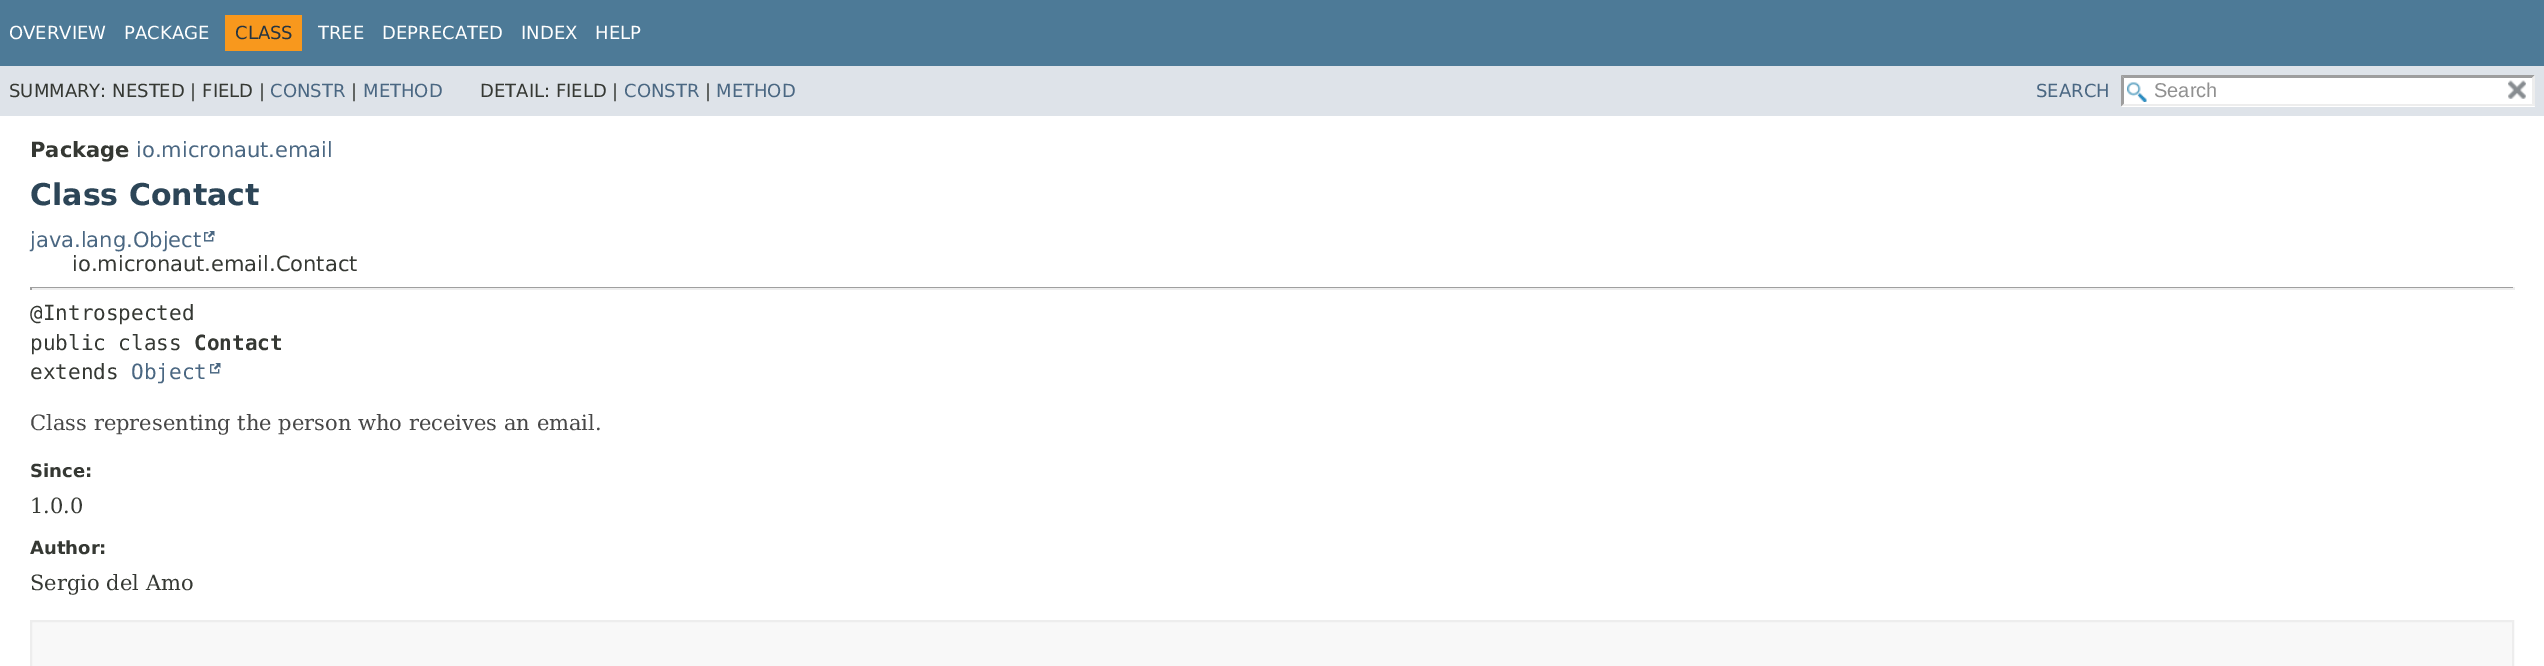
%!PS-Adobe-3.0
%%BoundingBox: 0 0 2544 666
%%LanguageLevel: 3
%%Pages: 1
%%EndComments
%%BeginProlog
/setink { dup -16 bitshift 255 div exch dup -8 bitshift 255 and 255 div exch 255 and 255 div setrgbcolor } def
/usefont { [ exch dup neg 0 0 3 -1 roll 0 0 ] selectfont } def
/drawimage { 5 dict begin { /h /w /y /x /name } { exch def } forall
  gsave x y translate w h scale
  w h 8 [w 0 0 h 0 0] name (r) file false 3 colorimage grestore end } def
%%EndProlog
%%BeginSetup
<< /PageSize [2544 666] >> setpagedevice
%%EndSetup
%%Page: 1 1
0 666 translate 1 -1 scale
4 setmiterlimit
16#FFFFFF setink
0 0 2544 666 rectfill
16#4D7A97 setink
0 0 2544 66 rectfill
/DejaVuSans-Regular 18 usefont
16#FFFFFF setink
9 39 moveto (OVERVIEW) show
124 39 moveto (PACKAGE) show
16#F8981D setink
225 15 77 36 rectfill
16#253441 setink
235 39 moveto (CLASS) show
16#FFFFFF setink
[
    [(TREE) 318 39]
    [(DEPRECATED) 382 39]
    [(INDEX) 521 39]
    [(HELP) 595 39]
] { aload pop moveto show } forall
16#DEE3E9 setink
0 66 2544 50 rectfill
16#353833 setink
9 97 moveto (SUMMARY: NESTED | FIELD |) show
16#4A6782 setink
270 97 moveto (CONSTR) show
16#353833 setink
351 97 moveto (|) show
16#4A6782 setink
363 97 moveto (METHOD) show
16#353833 setink
480 97 moveto (DETAIL: FIELD |) show
16#4A6782 setink
624 97 moveto (CONSTR) show
16#353833 setink
705 97 moveto (|) show
16#4A6782 setink
716 97 moveto (METHOD) show
2036 97 moveto (SEARCH) show
16#FFFFFF setink
2121 75 414 32 rectfill
(img1.raw) 2127 82 20 20 drawimage
16#9E9E9E setink
2121 75 moveto 2535 75 lineto 2532 78 lineto 2124 78 lineto closepath fill
16#EDEDED setink
2535 75 moveto 2535 106.5 lineto 2532 103.5 lineto 2532 78 lineto closepath fill
2535 106 moveto 2121 106 lineto 2124 104 lineto 2532 104 lineto closepath fill
16#9E9E9E setink
2121 106.5 moveto 2121 75 lineto 2124 78 lineto 2124 103.5 lineto closepath fill
/LiberationSans-Regular 20 usefont
16#909090 setink
2154 97 moveto (Search) show
(img2.raw) 2508 80 18 19 drawimage
/DejaVuSans-Bold 21 usefont
16#353833 setink
30 157 moveto (Package) show
/DejaVuSans-Regular 21 usefont
16#4A6782 setink
136 157 moveto (io.micronaut.email) show
/DejaVuSans-Bold 30 usefont
16#2C4557 setink
30 205 moveto (Class Contact) show
/DejaVuSans-Regular 21 usefont
16#4A6782 setink
30 247 moveto (java.lang.Object) show
(img3.raw) 204 231 11 11 drawimage
16#353833 setink
72 271 moveto (io.micronaut.email.Contact) show
[
    [30 287 2484 1 16#9F9F9F]
    [2513 287 2 3 16#EEEEEE]
    [30 288 2484 2 16#EEEEEE]
    [30 287 2 3 16#9F9F9F]
] { aload pop setink rectfill } forall
/DejaVuSansMono-Regular 21 usefont
16#353833 setink
30 320 moveto (@Introspected) show
30 350 moveto (public class) show
/DejaVuSansMono-Bold 21 usefont
194 350 moveto (Contact) show
/DejaVuSansMono-Regular 21 usefont
30 379 moveto (extends) show
16#4A6782 setink
131 379 moveto (Object) show
(img3.raw) 210 363 11 11 drawimage
/DejaVuSerif-Regular 21 usefont
16#474747 setink
30 430 moveto (Class representing the person who receives an email.) show
/DejaVuSans-Bold 18 usefont
16#353833 setink
30 477 moveto (Since:) show
/DejaVuSerif-Regular 21 usefont
30 513 moveto (1.0.0) show
/DejaVuSans-Bold 18 usefont
30 554 moveto (Author:) show
/DejaVuSerif-Regular 21 usefont
30 590 moveto (Sergio del Amo) show
16#F8F8F8 setink
31 621 moveto 2513 621 lineto 2513 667 lineto 31 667 lineto closepath gsave fill grestore
16#EDEDED setink
2 setlinewidth
stroke
showpage
%%EOF
